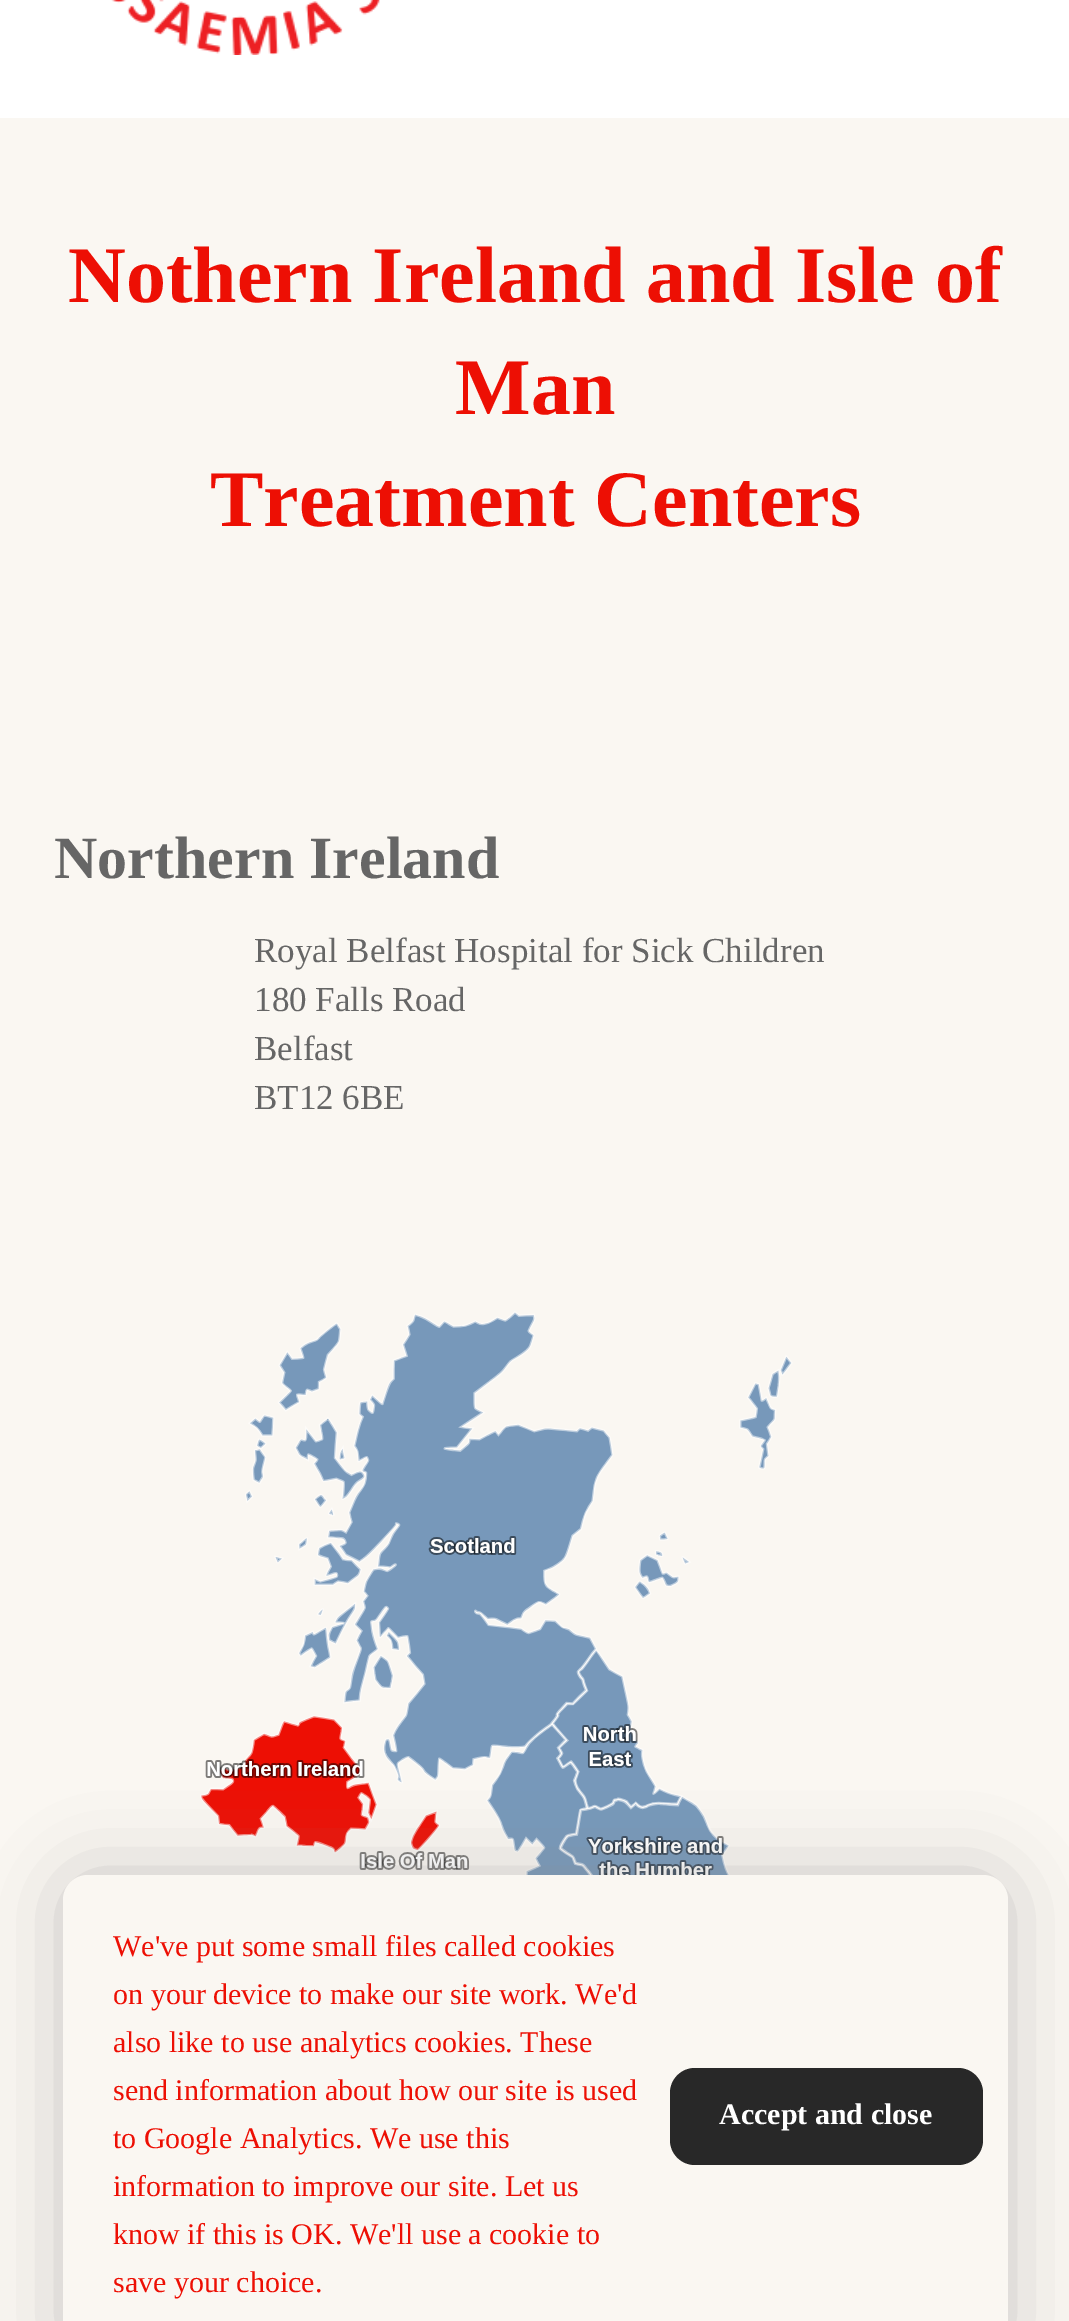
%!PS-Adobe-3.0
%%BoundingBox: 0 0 1069 2321
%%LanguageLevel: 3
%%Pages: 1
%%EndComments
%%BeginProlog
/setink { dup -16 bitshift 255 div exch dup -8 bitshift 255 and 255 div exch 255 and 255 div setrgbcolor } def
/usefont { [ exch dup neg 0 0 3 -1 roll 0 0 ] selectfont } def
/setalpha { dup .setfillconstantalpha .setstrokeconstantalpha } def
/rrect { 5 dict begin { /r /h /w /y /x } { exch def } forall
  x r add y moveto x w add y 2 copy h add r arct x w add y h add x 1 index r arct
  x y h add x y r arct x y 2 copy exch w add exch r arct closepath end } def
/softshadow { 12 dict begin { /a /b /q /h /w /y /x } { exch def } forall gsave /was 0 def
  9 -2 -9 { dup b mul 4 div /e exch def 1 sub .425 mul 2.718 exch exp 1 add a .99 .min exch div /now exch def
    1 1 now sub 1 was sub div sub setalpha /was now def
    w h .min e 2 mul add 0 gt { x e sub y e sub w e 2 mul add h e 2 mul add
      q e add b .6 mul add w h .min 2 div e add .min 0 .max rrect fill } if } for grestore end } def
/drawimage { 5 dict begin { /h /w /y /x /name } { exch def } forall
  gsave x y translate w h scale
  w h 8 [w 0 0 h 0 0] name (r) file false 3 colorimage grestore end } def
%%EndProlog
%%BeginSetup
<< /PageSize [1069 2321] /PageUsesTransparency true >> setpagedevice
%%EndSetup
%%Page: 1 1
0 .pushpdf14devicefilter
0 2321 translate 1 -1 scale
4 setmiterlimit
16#FAF7F2 setink
0 0 1069 2321 rectfill
16#FFFFFF setink
0 0 1069 118 rectfill
(img1.raw) 111 0 269 55 drawimage
/LiberationSerif-Bold 80 usefont
16#ED0F04 setink
[
    [(Nothern Ireland and Isle of) 68 302]
    [(Man) 455 414]
    [(Treatment Centers) 210 526]
] { aload pop moveto show } forall
/LiberationSerif-Bold 60 usefont
16#666666 setink
54 878 moveto (Northern Ireland) show
/LiberationSerif-Regular 35 usefont
[
    [(Royal Belfast Hospital for Sick Children) 254 962]
    [(180 Falls Road) 254 1011]
    [(Belfast) 254 1060]
    [(BT12 6BE) 254 1109]
] { aload pop moveto show } forall
(img2.raw) 200 1311 593 564 drawimage
16#8A8A8A setink
63 1875 945 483 25 37.5 0.44 softshadow
16#FAF7F2 setink
63 1875 945 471 25 rrect fill
/LiberationSerif-Regular 30 usefont
16#ED0F04 setink
[
    [(We've put some small files called cookies) 113 1956]
    [(on your device to make our site work. We'd) 113 2004]
    [(also like to use analytics cookies. These) 113 2052]
    [(send information about how our site is used) 113 2100]
    [(to Google Analytics. We use this) 113 2148]
    [(information to improve our site. Let us) 113 2196]
    [(know if this is OK. We'll use a cookie to) 113 2244]
    [(save your choice.) 113 2292]
] { aload pop moveto show } forall
16#282828 setink
670 2068 313 97 25 rrect fill
/LiberationSerif-Bold 30 usefont
16#FFFFFF setink
719 2124 moveto (Accept and close) show
.poppdf14devicefilter showpage
%%EOF
